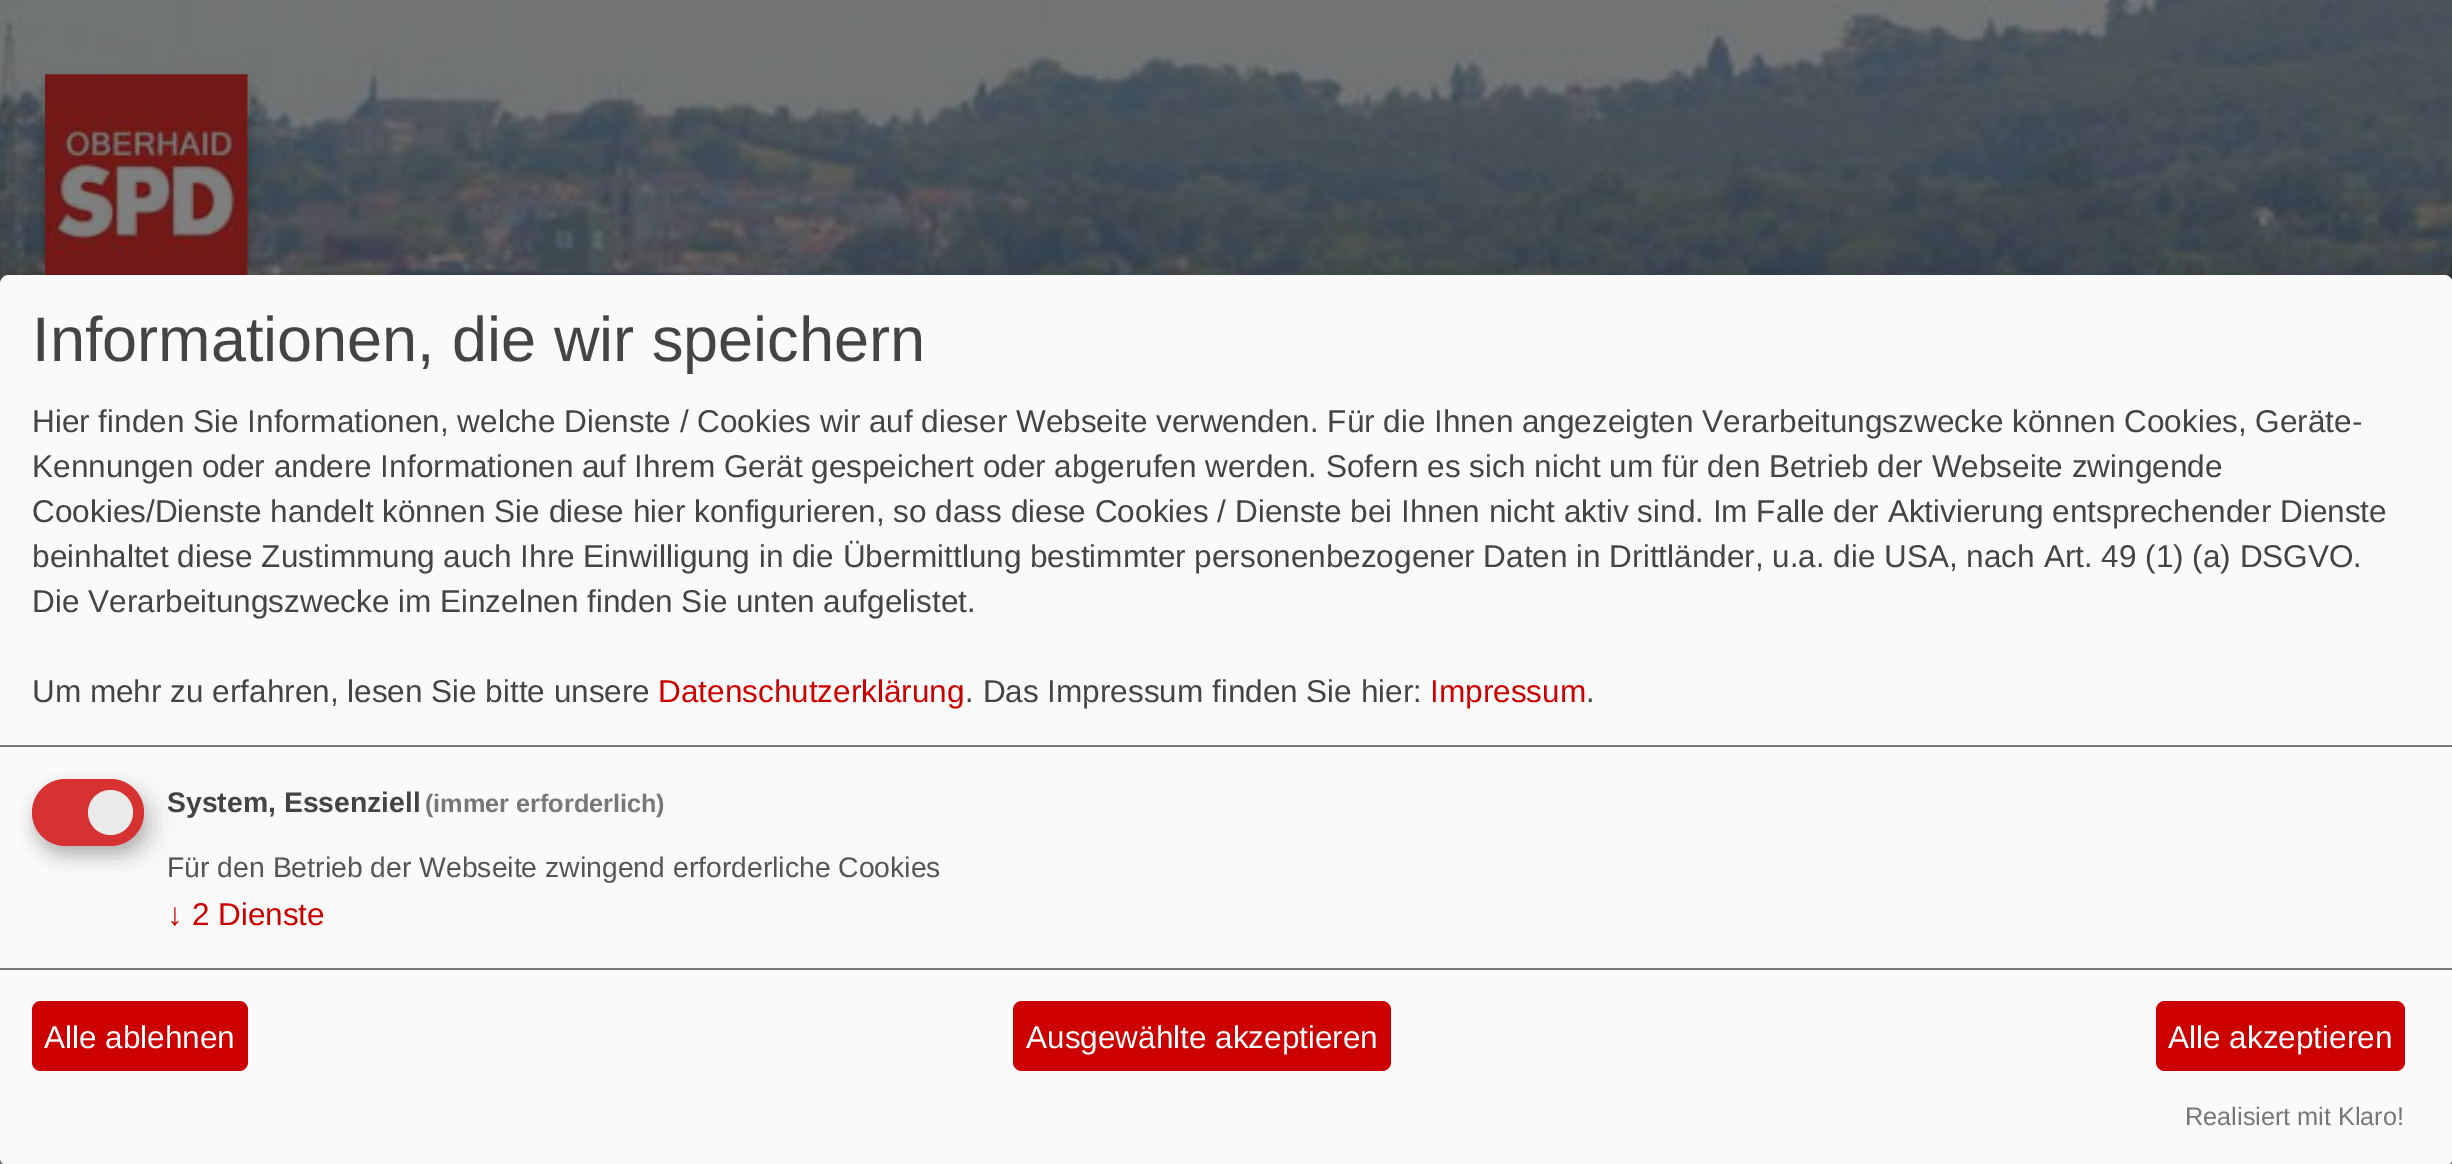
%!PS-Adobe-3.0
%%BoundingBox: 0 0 2452 1164
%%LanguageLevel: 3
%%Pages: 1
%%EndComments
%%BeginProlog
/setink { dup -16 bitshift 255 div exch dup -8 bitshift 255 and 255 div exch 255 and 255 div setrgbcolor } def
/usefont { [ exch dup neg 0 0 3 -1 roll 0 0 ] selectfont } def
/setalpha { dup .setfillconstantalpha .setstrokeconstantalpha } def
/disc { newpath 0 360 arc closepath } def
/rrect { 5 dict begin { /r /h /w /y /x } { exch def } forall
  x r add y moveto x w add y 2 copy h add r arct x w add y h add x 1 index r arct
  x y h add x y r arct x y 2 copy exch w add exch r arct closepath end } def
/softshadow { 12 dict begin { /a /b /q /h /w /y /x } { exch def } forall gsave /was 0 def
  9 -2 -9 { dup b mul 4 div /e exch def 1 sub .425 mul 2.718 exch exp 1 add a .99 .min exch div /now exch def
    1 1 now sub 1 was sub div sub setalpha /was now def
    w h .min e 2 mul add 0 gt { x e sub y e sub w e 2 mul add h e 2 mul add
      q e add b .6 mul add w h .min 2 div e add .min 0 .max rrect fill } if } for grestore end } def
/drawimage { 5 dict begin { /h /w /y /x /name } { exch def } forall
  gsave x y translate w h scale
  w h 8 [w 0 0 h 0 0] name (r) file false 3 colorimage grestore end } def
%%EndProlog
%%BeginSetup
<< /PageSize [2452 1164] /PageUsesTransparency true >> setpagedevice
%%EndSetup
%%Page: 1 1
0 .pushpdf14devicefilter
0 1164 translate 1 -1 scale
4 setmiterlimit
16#808080 setink
0 0 2452 1164 rectfill
(img1.raw) 0 0 2452 284 drawimage
16#000000 setink
47 88 198 198 0 9 0.4 softshadow
(img2.raw) 45 74 203 201 drawimage
11 286 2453 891 9 11 0.19 softshadow
0 284 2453 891 9 7 0.2 softshadow
16#FAFAFA setink
0 275 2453 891 9 rrect fill
16#777777 setink
0 745 2452 2 rectfill
/LiberationSans-Regular 63 usefont
16#444444 setink
32 361 moveto (Informationen, die wir speichern) show
/LiberationSans-Regular 31.5 usefont
[
    [(Hier finden Sie Informationen, welche Dienste / Cookies wir auf dieser Webseite verwenden. Für die Ihnen angezeigten Verarbeitungszwecke können Cookies, Geräte-) 32 432]
    [(Kennungen oder andere Informationen auf Ihrem Gerät gespeichert oder abgerufen werden. Sofern es sich nicht um für den Betrieb der Webseite zwingende) 32 477]
    [(Cookies/Dienste handelt können Sie diese hier konfigurieren, so dass diese Cookies / Dienste bei Ihnen nicht aktiv sind. Im Falle der Aktivierung entsprechender Dienste) 32 522]
    [(beinhaltet diese Zustimmung auch Ihre Einwilligung in die Übermittlung bestimmter personenbezogener Daten in Drittländer, u.a. die USA, nach Art. 49 \(1\) \(a\) DSGVO.) 32 567]
    [(Die Verarbeitungszwecke im Einzelnen finden Sie unten aufgelistet.) 32 612]
    [(Um mehr zu erfahren, lesen Sie bitte unsere) 32 702]
] { aload pop moveto show } forall
16#CD0000 setink
658 702 moveto (Datenschutzerklärung) show
16#444444 setink
965 702 moveto (. Das Impressum finden Sie hier:) show
16#CD0000 setink
1430 702 moveto (Impressum) show
16#444444 setink
1586 702 moveto (.) show
16#000000 setink
43 790 112 67 33.5 11 0.15 softshadow
16#323232 setink
32 788 112 67 33.5 7 0.2 softshadow
16#D63232 setink
32 779 112 67 33.5 rrect fill
16#EAEAEA setink
110.5 812.5 22.5 disc fill
/LiberationSans-Bold 28.35 usefont
16#444444 setink
167 812 moveto (System, Essenziell) show
/LiberationSans-Bold 25.25 usefont
16#777777 setink
425 812 moveto (\(immer erforderlich\)) show
/LiberationSans-Regular 28.35 usefont
16#555555 setink
167 877 moveto (Für den Betrieb der Webseite zwingend erforderliche Cookies) show
/LiberationSans-Regular 31.5 usefont
16#CD0000 setink
167 925 moveto (↓ 2 Dienste) show
16#777777 setink
0 968 2452 2 rectfill
16#CD0000 setink
32 1001 216 70 9 rrect fill
16#FFFFFF setink
44 1048 moveto (Alle ablehnen) show
16#CD0000 setink
1013 1001 378 70 9 rrect fill
16#FFFFFF setink
1026 1048 moveto (Ausgewählte akzeptieren) show
16#CD0000 setink
2156 1001 249 70 9 rrect fill
16#FFFFFF setink
2168 1048 moveto (Alle akzeptieren) show
/LiberationSans-Regular 25.25 usefont
16#777777 setink
2185 1125 moveto (Realisiert mit Klaro!) show
.poppdf14devicefilter showpage
%%EOF
